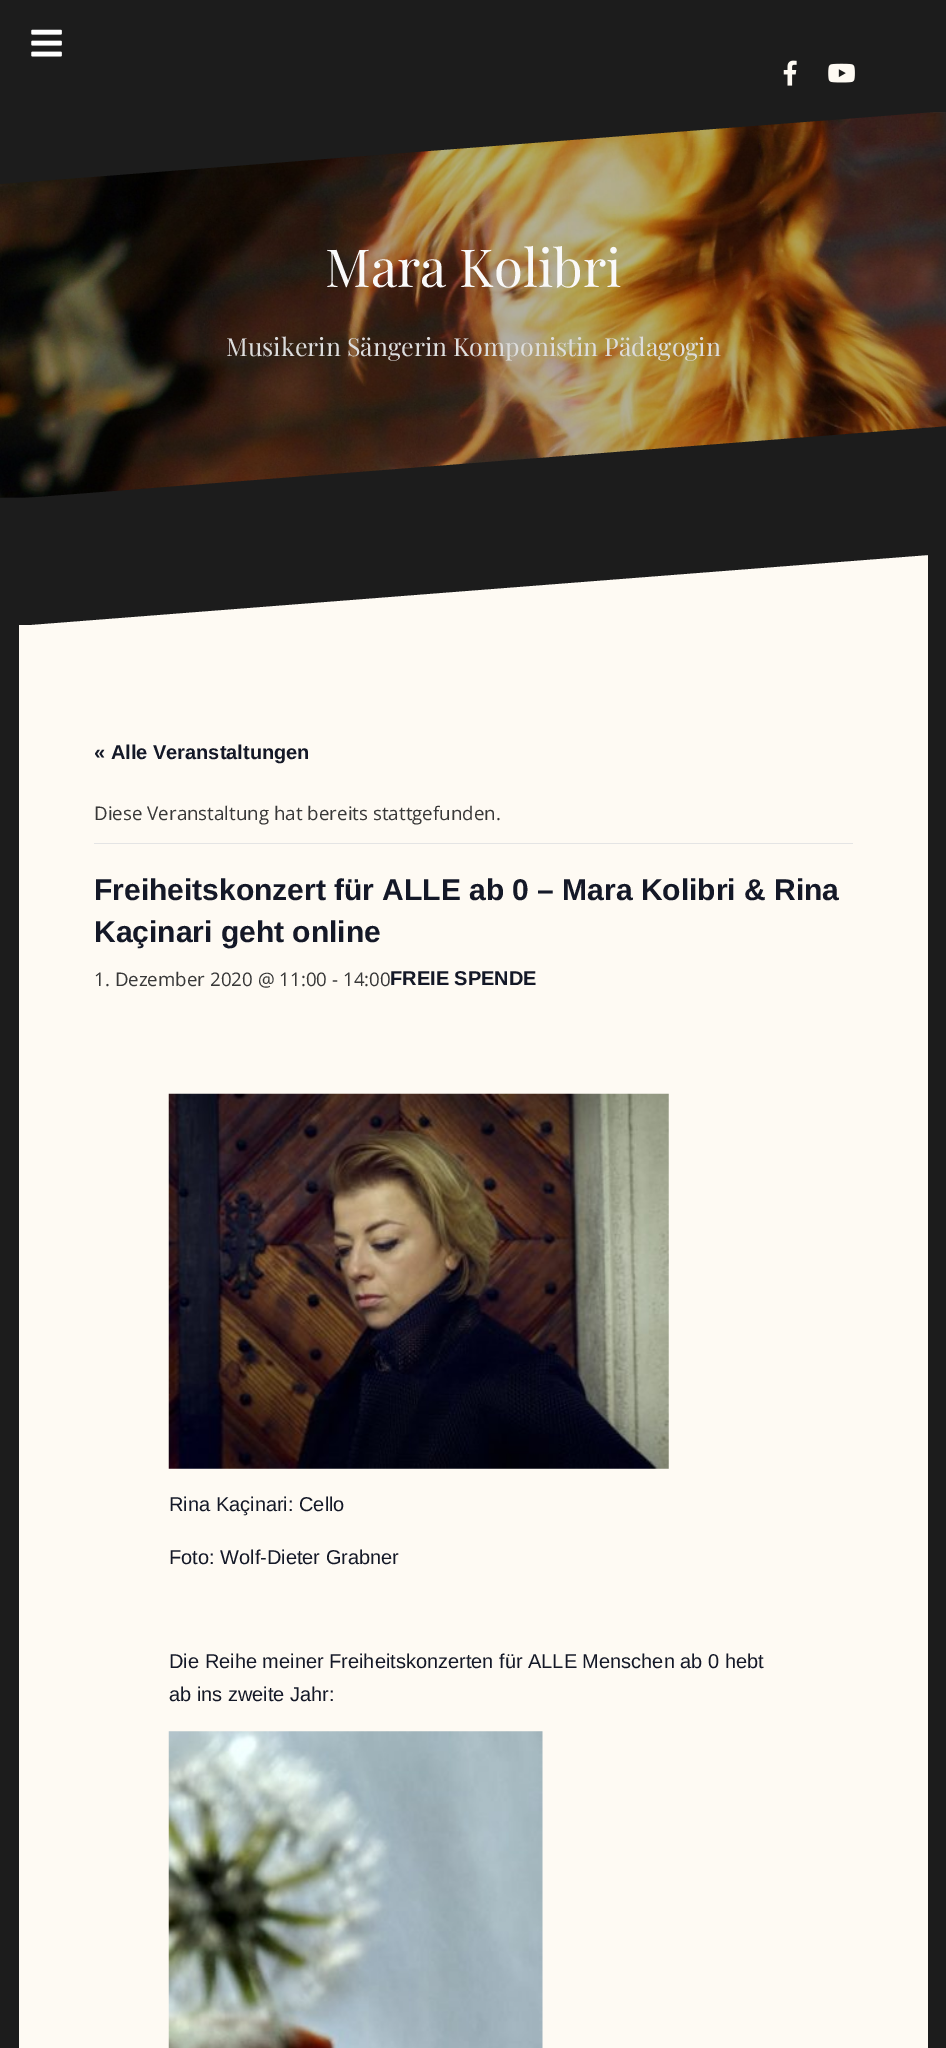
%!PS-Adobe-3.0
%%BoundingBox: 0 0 946 2048
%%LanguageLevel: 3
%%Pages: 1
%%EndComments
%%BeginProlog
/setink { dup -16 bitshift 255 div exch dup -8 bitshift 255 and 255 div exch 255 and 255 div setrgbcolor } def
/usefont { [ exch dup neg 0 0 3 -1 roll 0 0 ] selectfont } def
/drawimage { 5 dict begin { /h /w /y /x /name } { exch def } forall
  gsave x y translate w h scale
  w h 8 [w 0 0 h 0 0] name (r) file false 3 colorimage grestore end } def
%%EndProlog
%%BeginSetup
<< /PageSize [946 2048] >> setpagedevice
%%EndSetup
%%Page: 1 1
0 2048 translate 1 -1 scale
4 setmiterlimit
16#1C1C1C setink
0 0 946 2048 rectfill
16#141414 setink
0 497 39 1 rectfill
(img1.raw) 31 29 31 28 drawimage
(img2.raw) 783 60 14 26 drawimage
(img3.raw) 828 63 27 20 drawimage
(img4.raw) 0 112 946 386 drawimage
16#1C1C1C setink
0 184 moveto 0 111 lineto 946 111 lineto fill
/PlayfairDisplay-Regular 52.5 usefont
16#F9F9F9 setink
325 287 moveto (Mara Kolibri) show
/PlayfairDisplay-Regular 25 usefont
16#DDDDDD setink
226 356 moveto (Musikerin Sängerin Komponistin Pädagogin) show
16#1C1C1C setink
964 425 moveto 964 500 lineto 0 500 lineto fill
16#FEFAF3 setink
19 625 909 1423 rectfill
gsave
19 554 909 72 rectclip
944 554 moveto 944 626 lineto 19 626 lineto fill
grestore
/LiberationSans-Bold 20 usefont
16#141827 setink
94 759 moveto (« Alle Veranstaltungen) show
16#E4E4E4 setink
94 843 759 1 rectfill
/OpenSans-Regular 18.75 usefont
16#383838 setink
94 820 moveto (Diese Veranstaltung hat bereits stattgefunden.) show
/LiberationSans-Bold 30 usefont
16#141827 setink
94 900 moveto (Freiheitskonzert für ALLE ab 0 – Mara Kolibri & Rina) show
94 942 moveto (Kaçinari geht online) show
/OpenSans-Regular 18.75 usefont
16#383838 setink
94 986 moveto (1. Dezember 2020 @ 11:00 - 14:00) show
/LiberationSans-Bold 20 usefont
16#141827 setink
390 985 moveto (FREIE SPENDE) show
(img5.raw) 168 1093 501 376 drawimage
/LiberationSans-Regular 20 usefont
[
    [(Rina Kaçinari: Cello) 169 1511]
    [(Foto: Wolf-Dieter Grabner) 169 1564]
    [(Die Reihe meiner Freiheitskonzerten für ALLE Menschen ab 0 hebt) 169 1668]
    [(ab ins zweite Jahr:) 169 1701]
] { aload pop moveto show } forall
(img6.raw) 168 1731 375 317 drawimage
showpage
%%EOF
